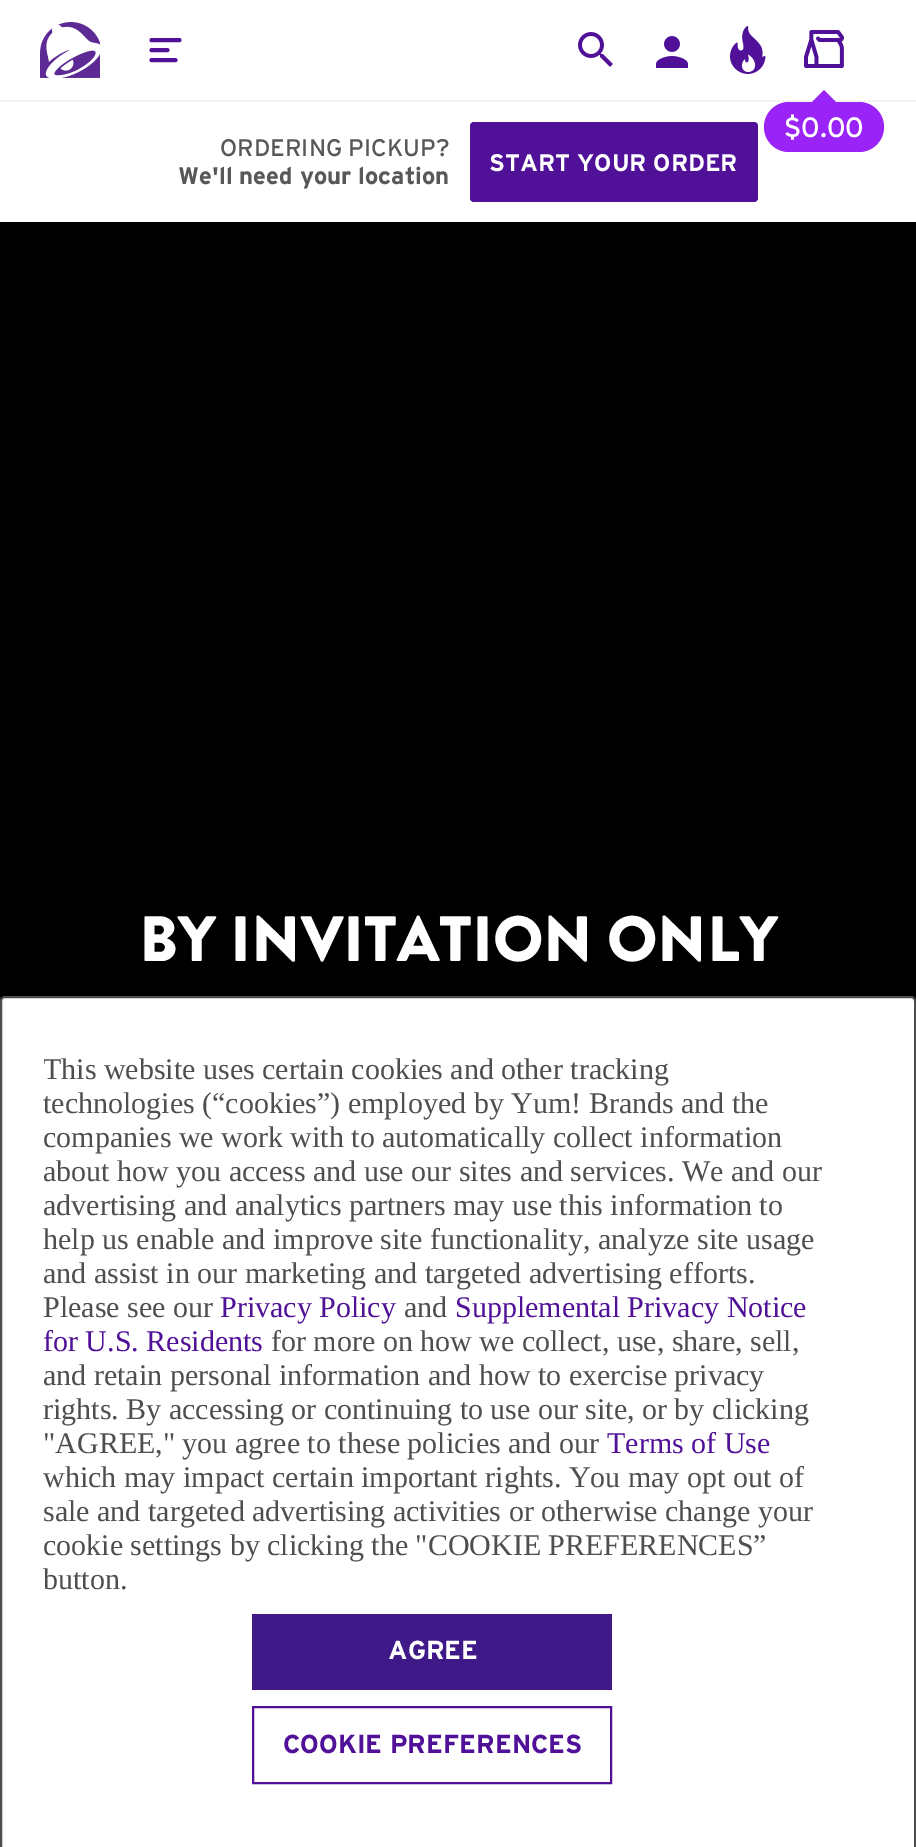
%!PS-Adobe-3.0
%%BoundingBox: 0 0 916 1847
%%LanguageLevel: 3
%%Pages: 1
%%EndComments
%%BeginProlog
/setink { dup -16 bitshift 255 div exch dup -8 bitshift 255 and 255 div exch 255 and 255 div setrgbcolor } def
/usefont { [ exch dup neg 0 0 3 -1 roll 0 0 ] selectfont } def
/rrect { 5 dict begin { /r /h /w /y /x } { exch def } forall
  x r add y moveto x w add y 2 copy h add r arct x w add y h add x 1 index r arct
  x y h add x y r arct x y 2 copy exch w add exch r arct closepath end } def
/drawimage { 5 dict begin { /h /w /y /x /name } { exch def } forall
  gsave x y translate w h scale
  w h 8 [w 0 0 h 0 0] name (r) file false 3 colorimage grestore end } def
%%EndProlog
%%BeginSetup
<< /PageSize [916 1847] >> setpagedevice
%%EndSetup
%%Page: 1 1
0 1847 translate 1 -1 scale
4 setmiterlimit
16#FFFFFF setink
0 0 916 1847 rectfill
16#F4F4F4 setink
0 100 916 2 rectfill
(img1.raw) 40 22 60 56 drawimage
16#501098 setink
4 setlinewidth
1 setlinecap
151.5 40 moveto 179.5 40 lineto 151.5 50 moveto 167.5 50 lineto 151.5 60 moveto 175.5 60 lineto stroke
(img2.raw) 578 32 35 35 drawimage
(img3.raw) 656 36 32 32 drawimage
(img4.raw) 730 26 36 48 drawimage
(img5.raw) 804 30 40 38 drawimage
16#9A23F8 setink
764 102 120 50 25 rrect fill
836 102 moveto 812 102 lineto 824 90 lineto closepath fill
/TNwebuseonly-Regular 28 usefont
16#FFFFFF setink
784 137 moveto ($0.00) show
/TNwebuseonly-Regular 24 usefont
16#585858 setink
220 156 moveto (ORDERING PICKUP?) show
/TNwebuseonly-Bold 24 usefont
178 184 moveto (We'll need your location) show
16#501098 setink
470 122 288 80 4 rrect fill
16#FFFFFF setink
489 171 moveto (START YOUR ORDER) show
16#000000 setink
0 222 916 779 rectfill
/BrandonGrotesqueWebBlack-Black 64 usefont
16#FFFFFF setink
139 961 moveto (BY INVITATION ONLY) show
1 997 914 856 4 rrect gsave fill grestore
16#4E4E4E setink
2 setlinewidth
0 setlinecap
stroke
gsave
44 1018 778 766 rectclip
/LiberationSerif-Regular 30 usefont
43 1079 moveto (This website uses certain cookies and other tracking) show
grestore
/LiberationSerif-Regular 30 usefont
[
    [(technologies \(“cookies”\) employed by Yum! Brands and the) 43 1113]
    [(companies we work with to automatically collect information) 43 1147]
    [(about how you access and use our sites and services. We and our) 43 1181]
    [(advertising and analytics partners may use this information to) 43 1215]
    [(help us enable and improve site functionality, analyze site usage) 43 1249]
    [(and assist in our marketing and targeted advertising efforts.) 43 1283]
    [(Please see our) 43 1317]
] { aload pop moveto show } forall
16#501098 setink
220 1317 moveto (Privacy Policy) show
16#4E4E4E setink
404 1317 moveto (and) show
16#501098 setink
455 1317 moveto (Supplemental Privacy Notice) show
43 1351 moveto (for U.S. Residents) show
16#4E4E4E setink
[
    [(for more on how we collect, use, share, sell,) 271 1351]
    [(and retain personal information and how to exercise privacy) 43 1385]
    [(rights. By accessing or continuing to use our site, or by clicking) 43 1419]
    [("AGREE," you agree to these policies and our) 43 1453]
] { aload pop moveto show } forall
16#501098 setink
607 1453 moveto (Terms of Use) show
16#4E4E4E setink
[
    [(which may impact certain important rights. You may opt out of) 43 1487]
    [(sale and targeted advertising activities or otherwise change your) 43 1521]
    [(cookie settings by clicking the "COOKIE PREFERENCES”) 43 1555]
    [(button.) 43 1589]
] { aload pop moveto show } forall
16#401989 setink
252 1614 360 76 rectfill
/TNwebuseonly-Bold 26 usefont
16#FFFFFF setink
388 1659 moveto (AGREE) show
16#501098 setink
253 1707 358 76 rectstroke
283 1753 moveto (COOKIE PREFERENCES) show
showpage
%%EOF
